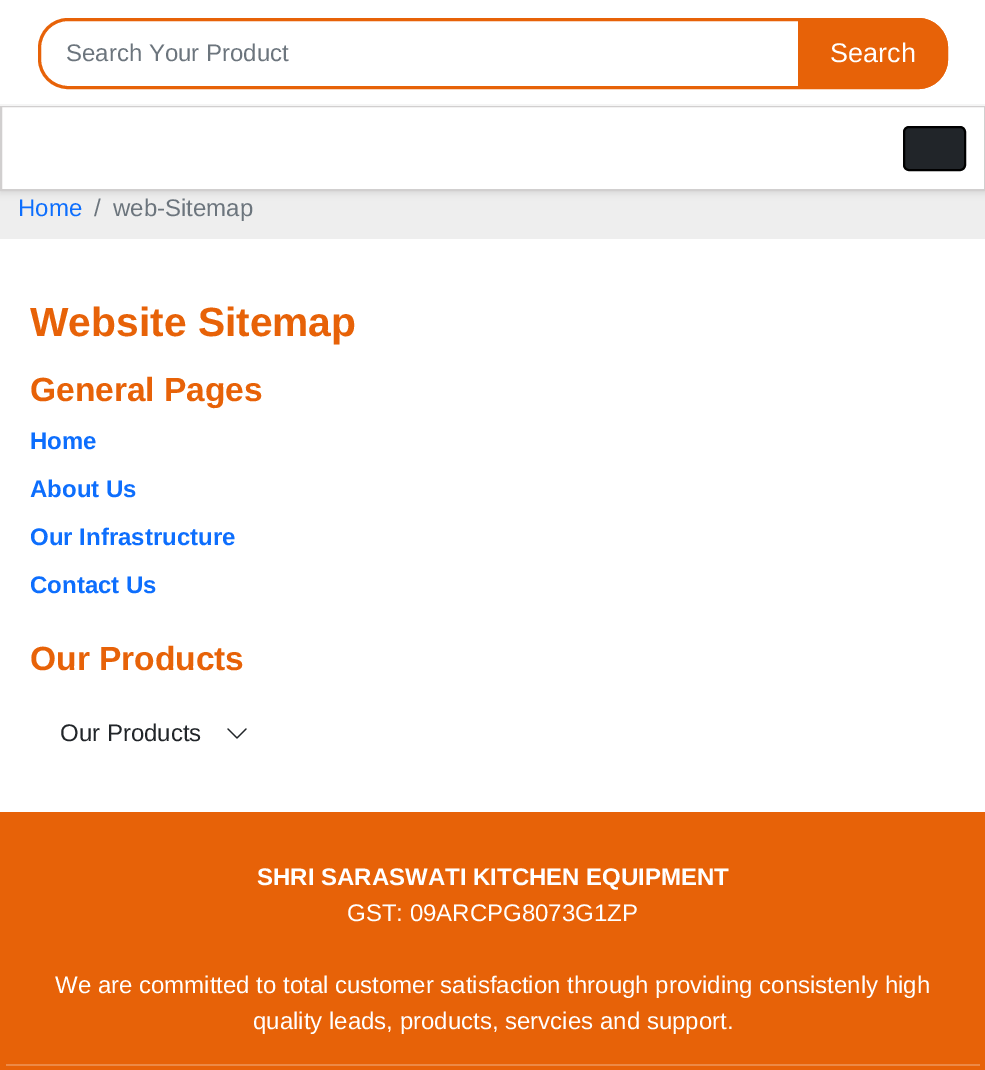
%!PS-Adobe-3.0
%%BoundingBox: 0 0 985 1070
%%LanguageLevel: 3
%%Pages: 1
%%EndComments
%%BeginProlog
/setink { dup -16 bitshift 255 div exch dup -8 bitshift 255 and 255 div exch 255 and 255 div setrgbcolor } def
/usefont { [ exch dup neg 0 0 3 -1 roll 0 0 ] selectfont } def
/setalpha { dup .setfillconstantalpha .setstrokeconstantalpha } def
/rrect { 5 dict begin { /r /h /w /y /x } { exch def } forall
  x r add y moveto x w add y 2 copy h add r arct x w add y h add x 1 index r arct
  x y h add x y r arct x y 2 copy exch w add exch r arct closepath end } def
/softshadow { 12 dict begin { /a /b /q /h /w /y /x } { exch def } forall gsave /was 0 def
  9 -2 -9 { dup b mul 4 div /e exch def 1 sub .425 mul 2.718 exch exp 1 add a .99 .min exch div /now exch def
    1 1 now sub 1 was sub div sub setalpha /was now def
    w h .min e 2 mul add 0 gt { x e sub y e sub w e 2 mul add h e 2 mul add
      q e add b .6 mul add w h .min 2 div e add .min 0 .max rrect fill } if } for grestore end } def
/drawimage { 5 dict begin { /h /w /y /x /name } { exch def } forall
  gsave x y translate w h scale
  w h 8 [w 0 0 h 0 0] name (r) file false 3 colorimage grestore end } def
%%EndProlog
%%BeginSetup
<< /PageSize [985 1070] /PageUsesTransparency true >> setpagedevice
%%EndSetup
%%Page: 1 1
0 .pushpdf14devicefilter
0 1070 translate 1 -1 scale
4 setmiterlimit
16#EEEEEE setink
0 0 985 1070 rectfill
16#000000 setink
0 3 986 191 0 3 0.07 softshadow
16#FFFFFF setink
0 0 985 104 rectfill
1 106 moveto 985 106 lineto 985 190 lineto 1 190 lineto closepath gsave fill grestore
16#D1CFCF setink
2 setlinewidth
stroke
16#F5F5F5 setink
0 104 985 2 rectfill
16#E76208 setink
3 setlinewidth
39.5 19.5 907 68 28.5 rrect stroke
/LiberationSans-Regular 24 usefont
16#6C757D setink
66 61 moveto (Search Your Product) show
16#E76208 setink
798 18 moveto 918 18 lineto 934.5 18 948 31.5 948 48 curveto 948 59 lineto 948 75.5 934.5 89 918 89 curveto 798 89 lineto closepath fill
/LiberationSans-Regular 27 usefont
16#FFFFFF setink
830 62 moveto (Search) show
16#212529 setink
904 127 61 43 5 rrect gsave fill grestore
16#000000 setink
2 setlinewidth
stroke
/LiberationSans-Regular 24 usefont
16#0D6EFD setink
18 216 moveto (Home) show
16#6C757D setink
94 216 moveto (/) show
113 216 moveto (web-Sitemap) show
16#FFFFFF setink
0 239 985 573 rectfill
/LiberationSans-Bold 40.75 usefont
16#E76208 setink
30 336 moveto (Website Sitemap) show
/LiberationSans-Bold 33.5 usefont
30 401 moveto (General Pages) show
/LiberationSans-Bold 24 usefont
16#0D6EFD setink
[
    [(Home) 30 449]
    [(About Us) 30 497]
    [(Our Infrastructure) 30 545]
    [(Contact Us) 30 593]
] { aload pop moveto show } forall
/LiberationSans-Bold 33.5 usefont
16#E76208 setink
30 670 moveto (Our Products) show
/LiberationSans-Regular 24 usefont
16#212529 setink
60 741 moveto (Our Products) show
(img1.raw) 227 728 20 11 drawimage
16#E76208 setink
0 812 985 258 rectfill
/LiberationSans-Bold 24 usefont
16#FFFFFF setink
257 885 moveto (SHRI SARASWATI KITCHEN EQUIPMENT) show
/LiberationSans-Regular 24 usefont
[
    [(GST: 09ARCPG8073G1ZP) 347 921]
    [(We are committed to total customer satisfaction through providing consistenly high) 55 993]
    [(quality leads, products, servcies and support.) 253 1029]
] { aload pop moveto show } forall
16#ED8946 setink
6 1064 974 2 rectfill
.poppdf14devicefilter showpage
%%EOF
